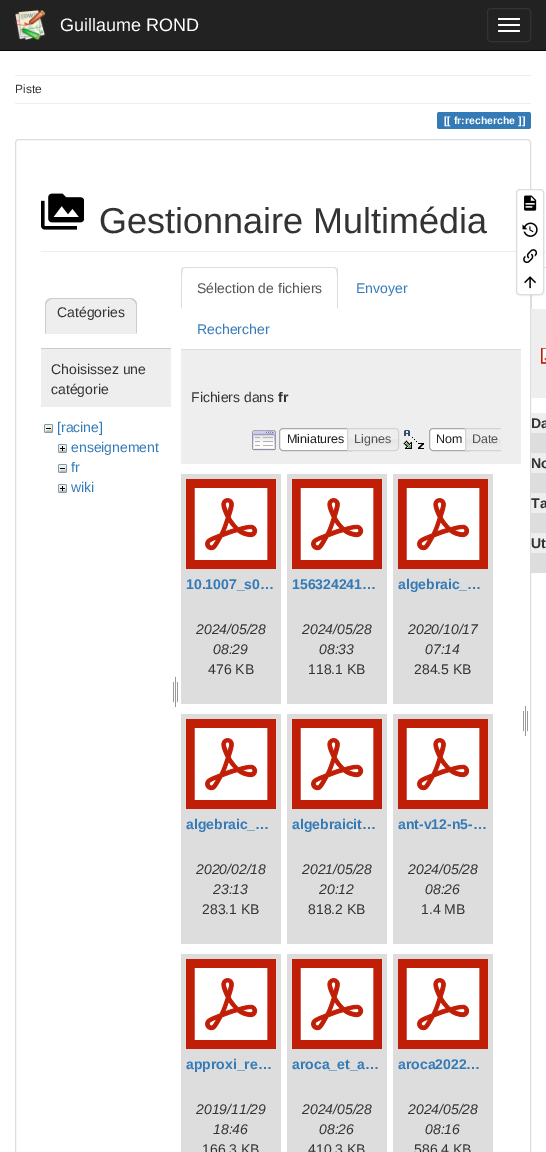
%!PS-Adobe-3.0
%%BoundingBox: 0 0 546 1152
%%LanguageLevel: 3
%%Pages: 1
%%EndComments
%%BeginProlog
/setink { dup -16 bitshift 255 div exch dup -8 bitshift 255 and 255 div exch 255 and 255 div setrgbcolor } def
/usefont { [ exch dup neg 0 0 3 -1 roll 0 0 ] selectfont } def
/setalpha { dup .setfillconstantalpha .setstrokeconstantalpha } def
/rrect { 5 dict begin { /r /h /w /y /x } { exch def } forall
  x r add y moveto x w add y 2 copy h add r arct x w add y h add x 1 index r arct
  x y h add x y r arct x y 2 copy exch w add exch r arct closepath end } def
/softshadow { 12 dict begin { /a /b /q /h /w /y /x } { exch def } forall gsave /was 0 def
  9 -2 -9 { dup b mul 4 div /e exch def 1 sub .425 mul 2.718 exch exp 1 add a .99 .min exch div /now exch def
    1 1 now sub 1 was sub div sub setalpha /was now def
    w h .min e 2 mul add 0 gt { x e sub y e sub w e 2 mul add h e 2 mul add
      q e add b .6 mul add w h .min 2 div e add .min 0 .max rrect fill } if } for grestore end } def
/drawimage { 5 dict begin { /h /w /y /x /name } { exch def } forall
  gsave x y translate w h scale
  w h 8 [w 0 0 h 0 0] name (r) file false 3 colorimage grestore end } def
%%EndProlog
%%BeginSetup
<< /PageSize [546 1152] /PageUsesTransparency true >> setpagedevice
%%EndSetup
%%Page: 1 1
0 .pushpdf14devicefilter
0 1152 translate 1 -1 scale
4 setmiterlimit
16#FFFFFF setink
0 0 546 1152 rectfill
16#222222 setink
0 0 546 50 rectfill
16#080808 setink
0 50 546 1 rectfill
(img1.raw) 15 10 30 30 drawimage
/LiberationSans-Regular 18 usefont
16#FFFFFF setink
60 31 moveto (Guillaume ROND) show
16#333333 setink
487.5 8.5 43 33 3.5 rrect stroke
16#FFFFFF setink
498 18 22 2 1 rrect fill
498 24 22 2 1 rrect fill
498 30 22 2 1 rrect fill
16#EEEEEE setink
15 75 516 1 rectfill
/LiberationSans-Regular 12 usefont
16#333333 setink
15 93 moveto (Piste) show
16#EEEEEE setink
15 103 516 1 rectfill
16#337AB7 setink
439.5 112 moveto 454 112 lineto 454 129 lineto 439.5 129 lineto 438 129 437 128 437 126.5 curveto 437 114.5 lineto 437 113 438 112 439.5 112 curveto closepath fill
454 112 61 17 rectfill
515 112 moveto 528.5 112 lineto 530 112 531 113 531 114.5 curveto 531 126.5 lineto 531 128 530 129 528.5 129 curveto 515 129 lineto closepath fill
/LiberationSans-Bold 10.5 usefont
16#FFFFFF setink
444 124 moveto ([[ fr:recherche ]]) show
16#DDDDDD setink
15.5 139.5 515 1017 3.5 rrect stroke
16#EEEEEE setink
41 251 505 1 rectfill
16#DDDDDD setink
535 267 moveto 532 268 lineto 533 269 lineto 535 267 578 268 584 268 curveto 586 269 lineto 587 268 lineto 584 267 lineto closepath fill
531 309 moveto 532 308 lineto 532 303 531 271 533 269 curveto 532 268 lineto 531 271 lineto closepath fill
16#000000 setink
516 190 28 106 4 0.5 0.05 softshadow
16#FFFFFF setink
516.5 189.5 27 105 3.5 rrect gsave fill grestore
16#DDDDDD setink
stroke
(img2.raw) 524 195 13 16 drawimage
(img3.raw) 522 222 16 15 drawimage
(img4.raw) 523 249 15 15 drawimage
(img5.raw) 524 276 12 13 drawimage
(img6.raw) 41 193 43 37 drawimage
/LiberationSans-Regular 36 usefont
16#333333 setink
99 233 moveto (Gestionnaire Multimédia) show
16#EEEEEE setink
52 298 moveto 130 298 lineto 134 298 137 301 137 305 curveto 137 334 lineto 45 334 lineto 45 305 lineto 45 301 48 298 52 298 curveto closepath fill
16#CCCCCC setink
52 298 moveto 50 298 48 299 47 300 curveto 48 301 lineto 51 299 lineto 131 299 lineto 134 301 lineto 135 300 lineto 134 299 132 298 130 298 curveto closepath fill
137 334 moveto 137 305 lineto 137 303 136 301 135 300 curveto 134 301 lineto 135 302 136 303.5 136 305 curveto 136 333 lineto closepath fill
16#EEEEEE setink
137 334 moveto 136 333 lineto 46 333 lineto 45 334 lineto closepath fill
16#CCCCCC setink
45 334 moveto 46 333 lineto 46 305 lineto 46 303.5 47 302 48 301 curveto 47 300 lineto 46 301 45 303 45 305 curveto closepath fill
/LiberationSans-Regular 14 usefont
16#333333 setink
57 317 moveto (Catégories) show
16#EEEEEE setink
41 349 130 58 rectfill
16#CCCCCC setink
41 348 130 1 rectfill
16#333333 setink
51 374 moveto (Choisissez une) show
51 394 moveto (catégorie) show
(img7.raw) 44 424 9 9 drawimage
16#337AB7 setink
57 432 moveto ([racine]) show
(img8.raw) 58 444 9 9 drawimage
71 452 moveto (enseignement) show
(img7.raw) 58 464 9 9 drawimage
71 472 moveto (fr) show
(img8.raw) 58 484 9 9 drawimage
71 492 moveto (wiki) show
(img9.raw) 173 676 5 31 drawimage
16#DDDDDD setink
181 349 340 1 rectfill
185 267 moveto 182 268 lineto 183 269 lineto 185 268 lineto 334 268 lineto 336 269 lineto 337 268 lineto 334 267 lineto closepath fill
338 309 moveto 338 271 lineto 338 270 338 269 337 268 curveto 336 269 lineto 338 271 337 303 337 308 curveto closepath fill
181 309 moveto 182 308 lineto 182 303 181 271 183 269 curveto 182 268 lineto 181 271 lineto closepath fill
16#555555 setink
197 293 moveto (Sélection de fichiers) show
16#337AB7 setink
356 293 moveto (Envoyer) show
197 334 moveto (Rechercher) show
16#EEEEEE setink
181 350 340 114 rectfill
16#333333 setink
191 402 moveto (Fichiers dans) show
/LiberationSans-Bold 14 usefont
278 402 moveto (fr) show
(img10.raw) 252 430 24 21 drawimage
16#FFFFFF setink
279 428 68 23 rectfill
16#AAAAAA setink
283 428.5 moveto 351.5 428.5 lineto 351.5 450.5 lineto 283 450.5 lineto 281 450.5 279.5 449 279.5 447 curveto 279.5 432 lineto 279.5 430 281 428.5 283 428.5 curveto closepath stroke
/LiberationSans-Regular 12.5 usefont
16#212121 setink
287 443 moveto (Miniatures) show
(img11.raw) 348 428 51 23 drawimage
16#D3D3D3 setink
347.5 428.5 moveto 395 428.5 lineto 397 428.5 398.5 430 398.5 432 curveto 398.5 447 lineto 398.5 449 397 450.5 395 450.5 curveto 347.5 450.5 lineto closepath stroke
16#555555 setink
354 443 moveto (Lignes) show
(img12.raw) 403 430 21 19 drawimage
16#FFFFFF setink
429 428 36 23 rectfill
16#AAAAAA setink
433 428.5 moveto 469.5 428.5 lineto 469.5 450.5 lineto 433 450.5 lineto 431 450.5 429.5 449 429.5 447 curveto 429.5 432 lineto 429.5 430 431 428.5 433 428.5 curveto closepath stroke
16#212121 setink
436 443 moveto (Nom) show
(img13.raw) 466 429 35 21 drawimage
gsave
244 428 257 28 rectclip
16#D3D3D3 setink
465.5 428.5 moveto 502 428.5 lineto 504 428.5 505.5 430 505.5 432 curveto 505.5 447 lineto 505.5 449 504 450.5 502 450.5 curveto 465.5 450.5 lineto closepath stroke
grestore
16#555555 setink
472 443 moveto (Date) show
16#DDDDDD setink
181 474 100 230 rectfill
(img14.raw) 186 479 90 90 drawimage
/LiberationSans-Bold 14 usefont
16#337AB7 setink
186 589 moveto (10.1007_s0…) show
/LiberationSans-Italic 14 usefont
16#333333 setink
196 634 moveto (2024/05/28) show
213 654 moveto (08:29) show
/LiberationSans-Regular 14 usefont
208 674 moveto (476 KB) show
16#DDDDDD setink
287 474 100 230 rectfill
(img14.raw) 292 479 90 90 drawimage
/LiberationSans-Bold 14 usefont
16#337AB7 setink
292 589 moveto (156324241…) show
/LiberationSans-Italic 14 usefont
16#333333 setink
302 634 moveto (2024/05/28) show
319 654 moveto (08:33) show
/LiberationSans-Regular 14 usefont
308 674 moveto (118.1 KB) show
16#DDDDDD setink
393 474 100 230 rectfill
(img14.raw) 398 479 90 90 drawimage
/LiberationSans-Bold 14 usefont
16#337AB7 setink
398 589 moveto (algebraic_…) show
/LiberationSans-Italic 14 usefont
16#333333 setink
408 634 moveto (2020/10/17) show
425 654 moveto (07:14) show
/LiberationSans-Regular 14 usefont
414 674 moveto (284.5 KB) show
16#DDDDDD setink
181 714 100 230 rectfill
(img14.raw) 186 719 90 90 drawimage
/LiberationSans-Bold 14 usefont
16#337AB7 setink
186 829 moveto (algebraic_…) show
/LiberationSans-Italic 14 usefont
16#333333 setink
196 874 moveto (2020/02/18) show
213 894 moveto (23:13) show
/LiberationSans-Regular 14 usefont
202 914 moveto (283.1 KB) show
16#DDDDDD setink
287 714 100 230 rectfill
(img14.raw) 292 719 90 90 drawimage
/LiberationSans-Bold 14 usefont
16#337AB7 setink
292 829 moveto (algebraicit…) show
/LiberationSans-Italic 14 usefont
16#333333 setink
302 874 moveto (2021/05/28) show
319 894 moveto (20:12) show
/LiberationSans-Regular 14 usefont
308 914 moveto (818.2 KB) show
16#DDDDDD setink
393 714 100 230 rectfill
(img14.raw) 398 719 90 90 drawimage
/LiberationSans-Bold 14 usefont
16#337AB7 setink
398 829 moveto (ant-v12-n5-…) show
/LiberationSans-Italic 14 usefont
16#333333 setink
408 874 moveto (2024/05/28) show
425 894 moveto (08:26) show
/LiberationSans-Regular 14 usefont
421 914 moveto (1.4 MB) show
16#DDDDDD setink
181 954 100 198 rectfill
(img14.raw) 186 959 90 90 drawimage
/LiberationSans-Bold 14 usefont
16#337AB7 setink
186 1069 moveto (approxi_re…) show
/LiberationSans-Italic 14 usefont
16#333333 setink
196 1114 moveto (2019/11/29) show
213 1134 moveto (18:46) show
/LiberationSans-Regular 14 usefont
202 1154 moveto (166.3 KB) show
16#DDDDDD setink
287 954 100 198 rectfill
(img14.raw) 292 959 90 90 drawimage
/LiberationSans-Bold 14 usefont
16#337AB7 setink
292 1069 moveto (aroca_et_a…) show
/LiberationSans-Italic 14 usefont
16#333333 setink
302 1114 moveto (2024/05/28) show
319 1134 moveto (08:26) show
/LiberationSans-Regular 14 usefont
308 1154 moveto (410.3 KB) show
16#DDDDDD setink
393 954 100 198 rectfill
(img14.raw) 398 959 90 90 drawimage
/LiberationSans-Bold 14 usefont
16#337AB7 setink
398 1069 moveto (aroca2022…) show
/LiberationSans-Italic 14 usefont
16#333333 setink
408 1114 moveto (2024/05/28) show
425 1134 moveto (08:16) show
/LiberationSans-Regular 14 usefont
414 1154 moveto (586.4 KB) show
(img9.raw) 523 705 5 31 drawimage
16#EEEEEE setink
531 309 15 89 rectfill
(img15.raw) 541 348 5 16 drawimage
531 413 15 20 rectfill
/LiberationSans-Bold 14 usefont
16#333333 setink
531 428 moveto (Da) show
16#DDDDDD setink
531 433 15 20 rectfill
16#EEEEEE setink
531 453 15 20 rectfill
16#333333 setink
531 468 moveto (No) show
16#DDDDDD setink
531 473 15 20 rectfill
16#EEEEEE setink
531 493 15 20 rectfill
16#333333 setink
531 508 moveto (Ta) show
16#DDDDDD setink
531 513 15 20 rectfill
16#EEEEEE setink
531 533 15 20 rectfill
16#333333 setink
531 548 moveto (Ut) show
16#DDDDDD setink
531 553 15 20 rectfill
.poppdf14devicefilter showpage
%%EOF
